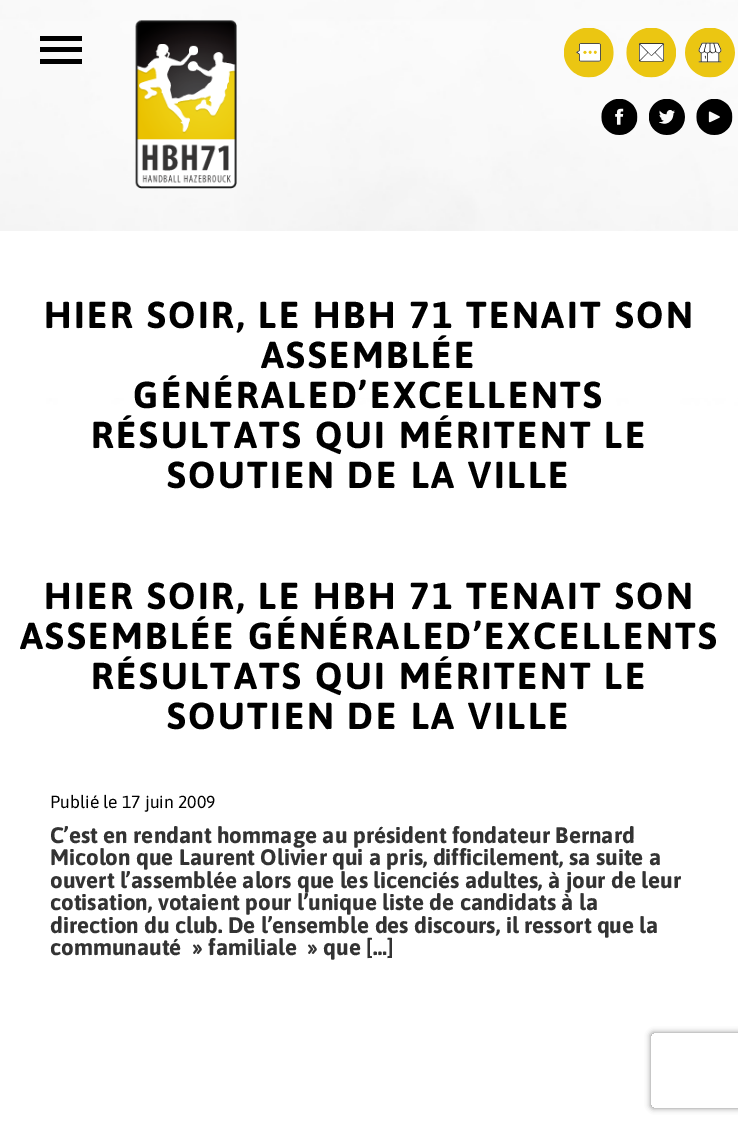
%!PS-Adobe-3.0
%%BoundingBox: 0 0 738 1125
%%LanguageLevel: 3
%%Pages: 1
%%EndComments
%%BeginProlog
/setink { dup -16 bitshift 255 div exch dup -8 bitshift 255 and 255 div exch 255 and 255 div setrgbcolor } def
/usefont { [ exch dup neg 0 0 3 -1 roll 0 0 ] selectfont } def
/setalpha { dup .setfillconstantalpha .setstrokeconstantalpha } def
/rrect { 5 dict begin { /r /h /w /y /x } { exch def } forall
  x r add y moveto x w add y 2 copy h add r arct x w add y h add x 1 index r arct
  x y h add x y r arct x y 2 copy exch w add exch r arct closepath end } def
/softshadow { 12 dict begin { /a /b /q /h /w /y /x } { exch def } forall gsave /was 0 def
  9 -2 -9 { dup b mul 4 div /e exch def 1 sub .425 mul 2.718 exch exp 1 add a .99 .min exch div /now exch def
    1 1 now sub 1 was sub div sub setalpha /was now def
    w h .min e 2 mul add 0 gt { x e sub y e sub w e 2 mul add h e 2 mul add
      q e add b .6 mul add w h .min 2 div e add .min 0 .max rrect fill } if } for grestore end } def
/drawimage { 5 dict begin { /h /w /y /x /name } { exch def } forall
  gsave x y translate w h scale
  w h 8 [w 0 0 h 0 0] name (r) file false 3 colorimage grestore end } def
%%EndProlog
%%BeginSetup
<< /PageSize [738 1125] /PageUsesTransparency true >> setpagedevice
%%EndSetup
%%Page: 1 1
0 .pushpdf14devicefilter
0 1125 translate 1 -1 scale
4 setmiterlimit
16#FFFFFF setink
0 0 738 1125 rectfill
(img1.raw) 0 0 738 735 drawimage
16#000000 setink
40 64 moveto 82 64 lineto 82 59 lineto 40 59 lineto closepath 40 52 moveto 82 52 lineto 82 47 lineto 40 47 lineto closepath 40 36 moveto 40 41 lineto 82 41 lineto 82 36 lineto closepath fill
(img2.raw) 135 20 102 169 drawimage
(img3.raw) 564 28 50 50 drawimage
(img4.raw) 626 28 50 50 drawimage
(img5.raw) 685 28 50 50 drawimage
(img6.raw) 601 99 37 36 drawimage
(img7.raw) 649 99 36 36 drawimage
(img8.raw) 696 99 37 36 drawimage
16#FFFFFF setink
0 231 738 167 rectfill
/Asap-Bold 37.5 usefont
16#000000 setink
44 328 moveto 2.5 0 (HIER SOIR, LE HBH 71 TENAIT SON) ashow
261 368 moveto 2.5 0 (ASSEMBLÉE) ashow
133 408 moveto 2.5 0 (GÉNÉRALED’EXCELLENTS) ashow
91 448 moveto 2.5 0 (RÉSULTATS QUI MÉRITENT LE) ashow
167 488 moveto 2.5 0 (SOUTIEN DE LA VILLE) ashow
44 609 moveto 2.5 0 (HIER SOIR, LE HBH 71 TENAIT SON) ashow
20 649 moveto 2.5 0 (ASSEMBLÉE GÉNÉRALED’EXCELLENTS) ashow
91 689 moveto 2.5 0 (RÉSULTATS QUI MÉRITENT LE) ashow
167 729 moveto 2.5 0 (SOUTIEN DE LA VILLE) ashow
/Asap-Regular 17.5 usefont
50 808 moveto (Publié le 17 juin 2009) show
/Asap-Bold 22.5 usefont
16#333333 setink
[
    [(C’est en rendant hommage au président fondateur Bernard) 50 843]
    [(Micolon que Laurent Olivier qui a pris, difficilement, sa suite a) 50 865]
    [(ouvert l’assemblée alors que les licenciés adultes, à jour de leur) 50 888]
    [(cotisation, votaient pour l’unique liste de candidats à la) 50 910]
    [(direction du club. De l’ensemble des discours, il ressort que la) 50 933]
    [(communauté  » familiale  » que […]) 50 955]
] { aload pop moveto show } forall
gsave
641 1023 moveto 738 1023 lineto 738 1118 lineto 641 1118 lineto closepath 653.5 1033 moveto 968.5 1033 lineto 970 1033 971 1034 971 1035.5 curveto 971 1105.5 lineto 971 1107 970 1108 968.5 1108 curveto 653.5 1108 lineto 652 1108 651 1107 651 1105.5 curveto 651 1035.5 lineto 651 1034 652 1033 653.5 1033 curveto closepath eoclip newpath
16#808080 setink
651 1033 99 75 2.5 3 1 softshadow
grestore
.poppdf14devicefilter showpage
%%EOF
